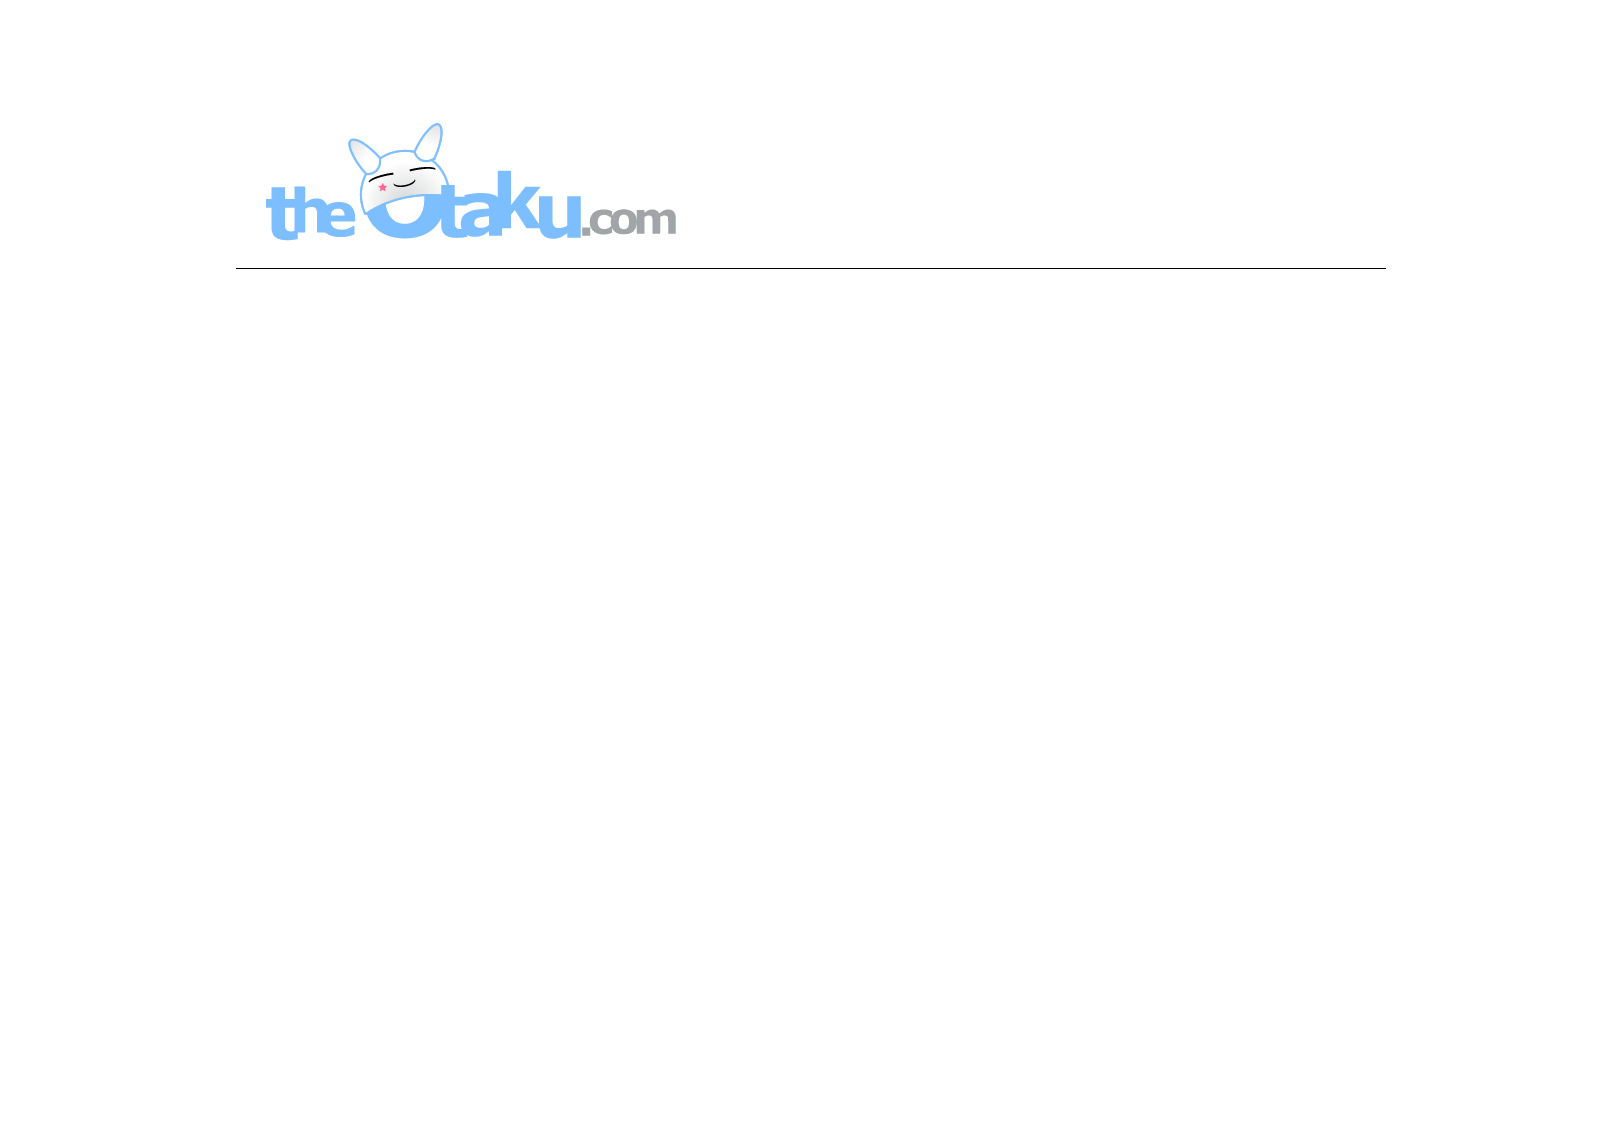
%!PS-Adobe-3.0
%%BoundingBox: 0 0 1622 1125
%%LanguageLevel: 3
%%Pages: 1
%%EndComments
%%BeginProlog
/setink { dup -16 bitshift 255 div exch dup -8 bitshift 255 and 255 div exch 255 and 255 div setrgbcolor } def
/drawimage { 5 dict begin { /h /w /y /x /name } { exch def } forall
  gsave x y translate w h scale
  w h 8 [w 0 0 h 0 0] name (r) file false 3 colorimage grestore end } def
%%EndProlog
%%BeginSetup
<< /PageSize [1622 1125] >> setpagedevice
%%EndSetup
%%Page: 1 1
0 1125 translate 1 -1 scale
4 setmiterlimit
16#FFFFFF setink
0 0 1622 1125 rectfill
16#000000 setink
236 268 1150 1 rectfill
(img1.raw) 266 123 410 118 drawimage
showpage
%%EOF
